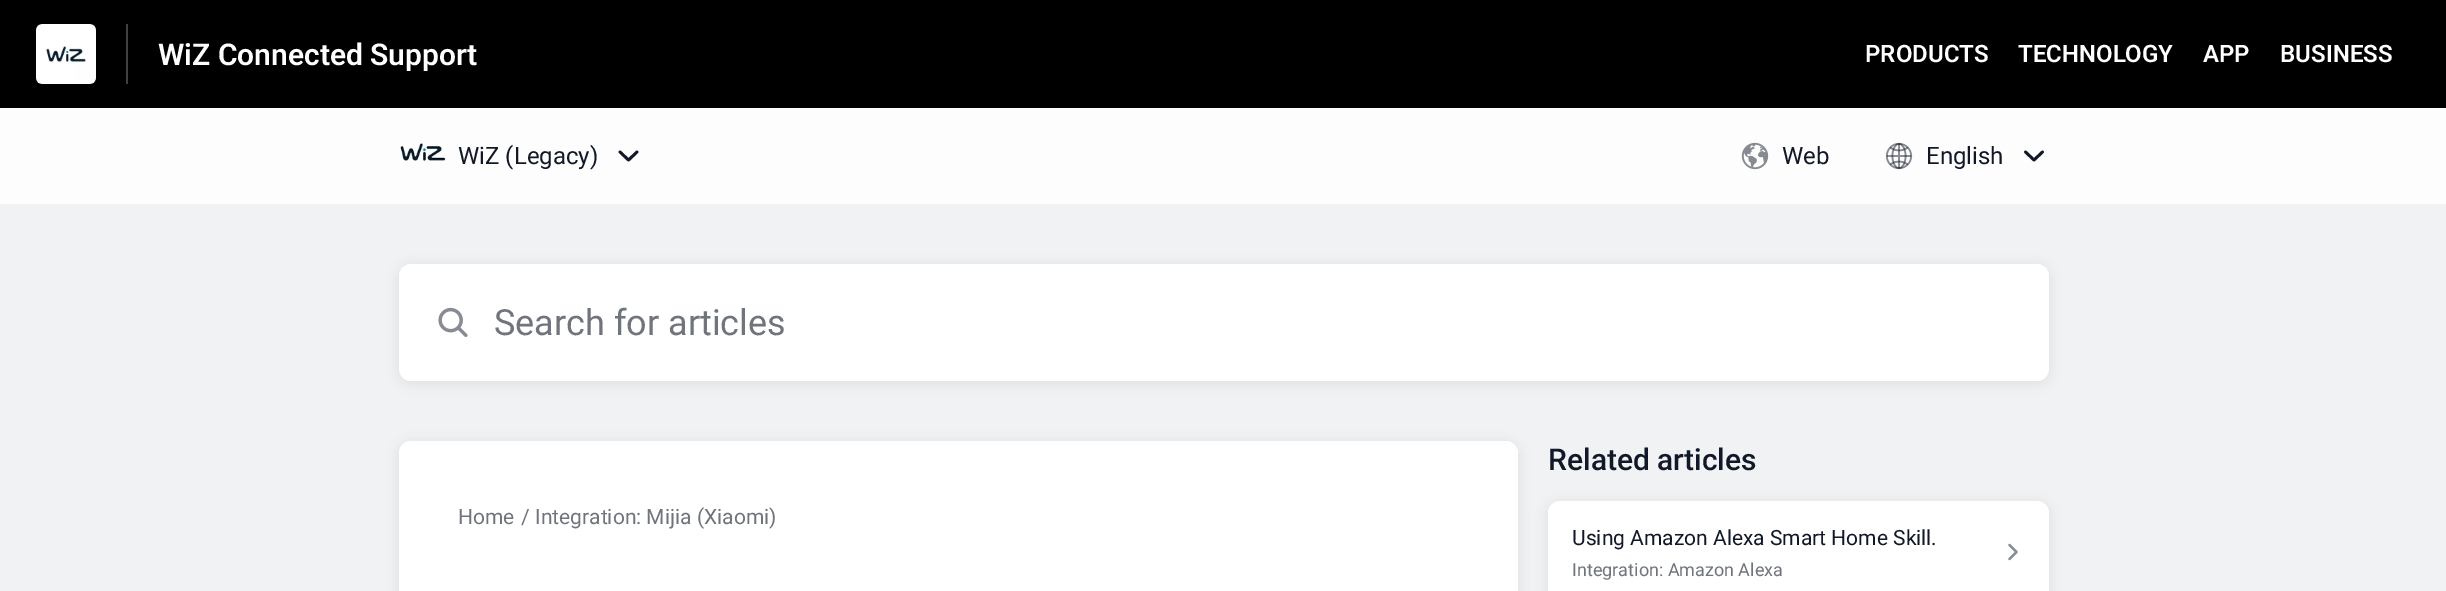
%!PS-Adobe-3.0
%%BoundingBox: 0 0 2446 591
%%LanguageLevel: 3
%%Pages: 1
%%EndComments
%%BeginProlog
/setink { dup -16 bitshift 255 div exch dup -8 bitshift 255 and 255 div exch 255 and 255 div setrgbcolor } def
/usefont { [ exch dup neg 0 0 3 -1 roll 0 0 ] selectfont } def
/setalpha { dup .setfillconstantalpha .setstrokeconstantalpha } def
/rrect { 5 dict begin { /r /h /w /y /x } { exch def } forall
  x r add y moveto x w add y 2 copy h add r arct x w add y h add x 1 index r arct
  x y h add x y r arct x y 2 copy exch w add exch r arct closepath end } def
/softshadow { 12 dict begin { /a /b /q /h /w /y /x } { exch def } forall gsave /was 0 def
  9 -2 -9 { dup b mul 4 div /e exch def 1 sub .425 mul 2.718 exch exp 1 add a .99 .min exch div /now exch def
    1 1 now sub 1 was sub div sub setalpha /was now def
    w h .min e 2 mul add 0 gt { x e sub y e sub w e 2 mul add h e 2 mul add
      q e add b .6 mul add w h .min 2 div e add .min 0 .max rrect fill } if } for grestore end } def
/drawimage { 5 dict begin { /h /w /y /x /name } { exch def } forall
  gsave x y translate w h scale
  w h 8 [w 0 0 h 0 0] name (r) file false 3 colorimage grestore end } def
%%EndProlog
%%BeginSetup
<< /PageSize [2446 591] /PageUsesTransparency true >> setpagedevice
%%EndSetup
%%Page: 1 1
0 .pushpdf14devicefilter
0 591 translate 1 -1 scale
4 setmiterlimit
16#FDFDFD setink
0 0 2446 591 rectfill
16#000000 setink
0 0 2446 108 rectfill
16#404040 setink
126 24 2 60 rectfill
(img1.raw) 36 24 60 60 drawimage
/Roboto-SemiBold 30 usefont
16#FFFFFF setink
158 65 moveto (WiZ Connected Support) show
/Roboto-SemiBold 24 usefont
[
    [(PRODUCTS) 1865 62]
    [(TECHNOLOGY) 2018 62]
    [(APP) 2203 62]
    [(BUSINESS) 2280 62]
] { aload pop moveto show } forall
(img2.raw) 400 143 46 18 drawimage
/Roboto-Regular 24 usefont
16#111827 setink
458 164 moveto (WiZ \(Legacy\)) show
2.8 setlinewidth
1 setlinecap
1 setlinejoin
620 152 moveto 628.5 160 lineto 637 152 lineto stroke
(img3.raw) 1741 142 28 28 drawimage
1782 164 moveto (Web) show
(img4.raw) 1885 142 28 28 drawimage
1926 164 moveto (English) show
2025.5 152 moveto 2034 160 lineto 2042.5 152 lineto stroke
16#F0F2F4 setink
0 204 2446 387 rectfill
16#000000 setink
399 266 1650 117 12 6 0.08 softshadow
16#FFFFFF setink
399 264 1650 117 12 rrect fill
(img5.raw) 438 307 30 30 drawimage
/Roboto-Regular 36 usefont
16#70747D setink
494 335 moveto (Search for articles) show
16#000000 setink
399 443 1119 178 12 6 0.08 softshadow
16#FFFFFF setink
411 441 moveto 1506 441 lineto 1512.5 441 1518 446.5 1518 453 curveto 1518 591 lineto 399 591 lineto 399 453 lineto 399 446.5 404.5 441 411 441 curveto closepath fill
/Roboto-Regular 21 usefont
16#70747D setink
[
    [(Home) 458 524]
    [(/) 521 524]
    [(Integration: Mijia \(Xiaomi\)) 535 524]
] { aload pop moveto show } forall
/Roboto-Medium 30 usefont
16#111827 setink
1548 470 moveto (Related articles) show
16#000000 setink
1548 503 501 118 12 6 0.08 softshadow
16#FFFFFF setink
1560 501 moveto 2037 501 lineto 2043.5 501 2049 506.5 2049 513 curveto 2049 591 lineto 1548 591 lineto 1548 513 lineto 1548 506.5 1553.5 501 1560 501 curveto closepath fill
/Roboto-Regular 21 usefont
16#111827 setink
1572 545 moveto (Using Amazon Alexa Smart Home Skill.) show
/Roboto-Regular 18 usefont
16#70747D setink
1572 576 moveto (Integration: Amazon Alexa) show
16#888C93 setink
2.2 setlinewidth
2009.5 545 moveto 2016.5 552 lineto 2009.5 559 lineto stroke
.poppdf14devicefilter showpage
%%EOF
